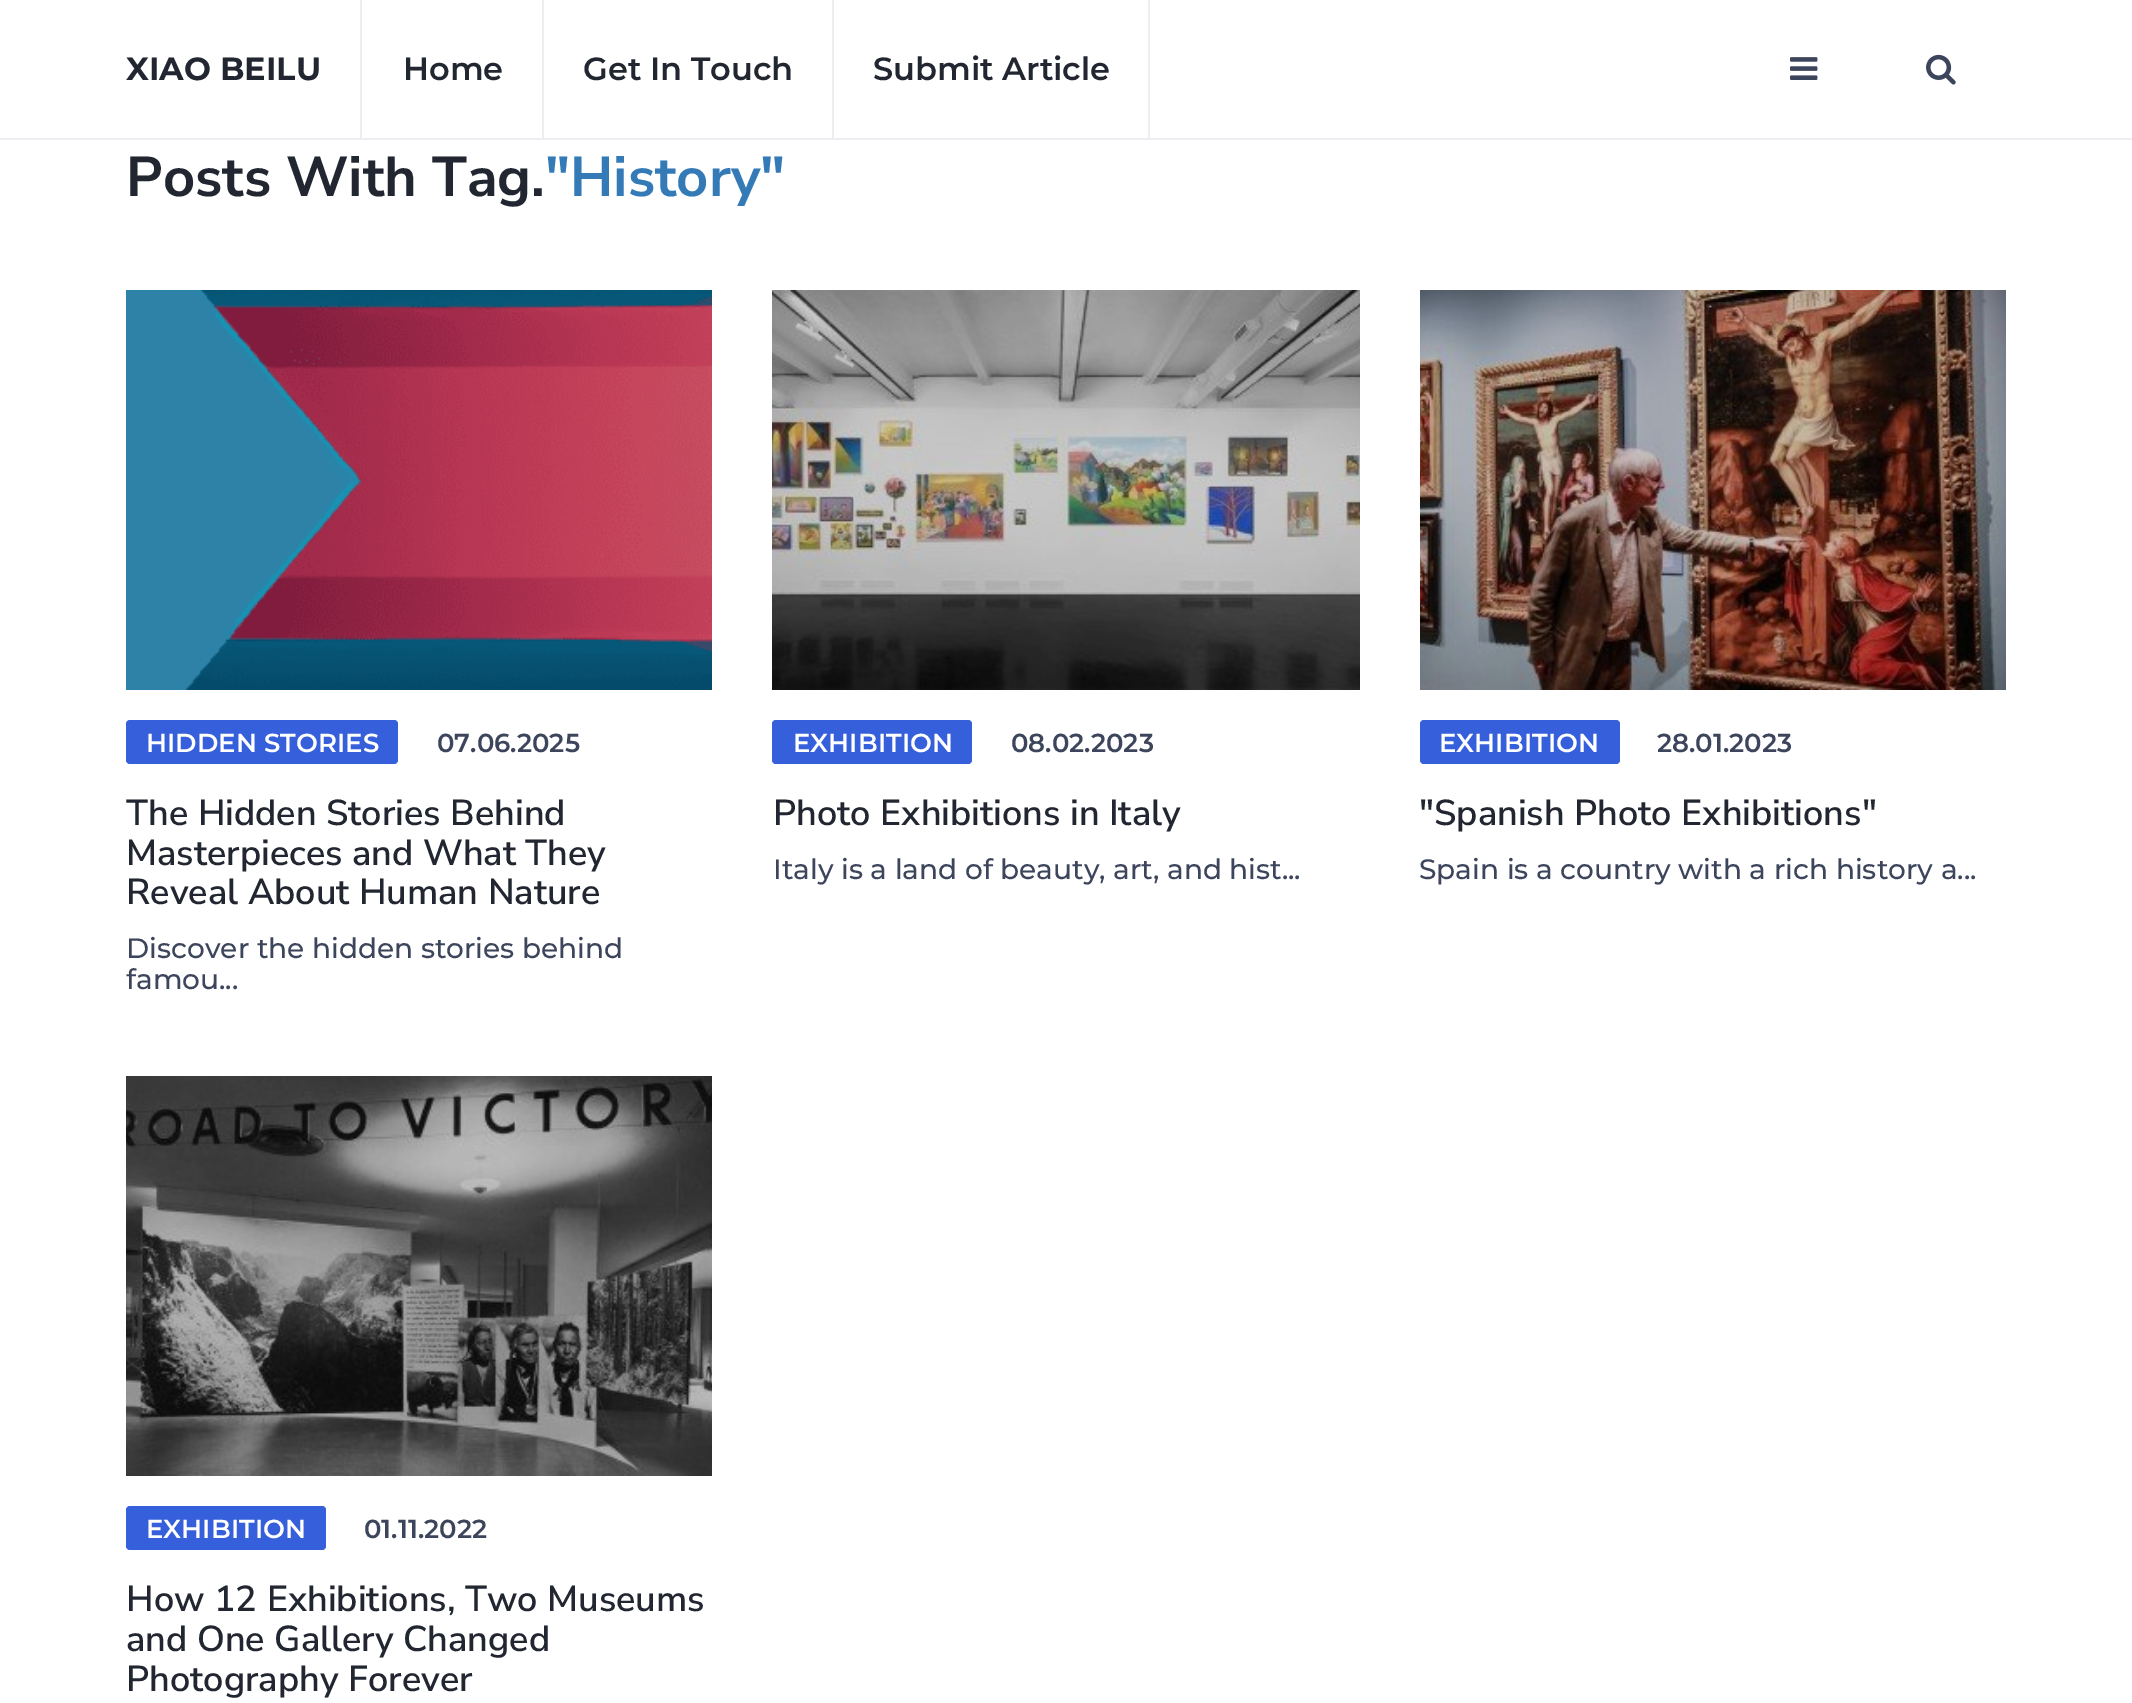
%!PS-Adobe-3.0
%%BoundingBox: 0 0 2132 1703
%%LanguageLevel: 3
%%Pages: 1
%%EndComments
%%BeginProlog
/setink { dup -16 bitshift 255 div exch dup -8 bitshift 255 and 255 div exch 255 and 255 div setrgbcolor } def
/usefont { [ exch dup neg 0 0 3 -1 roll 0 0 ] selectfont } def
/rrect { 5 dict begin { /r /h /w /y /x } { exch def } forall
  x r add y moveto x w add y 2 copy h add r arct x w add y h add x 1 index r arct
  x y h add x y r arct x y 2 copy exch w add exch r arct closepath end } def
/drawimage { 5 dict begin { /h /w /y /x /name } { exch def } forall
  gsave x y translate w h scale
  w h 8 [w 0 0 h 0 0] name (r) file false 3 colorimage grestore end } def
%%EndProlog
%%BeginSetup
<< /PageSize [2132 1703] >> setpagedevice
%%EndSetup
%%Page: 1 1
0 1703 translate 1 -1 scale
4 setmiterlimit
16#FFFFFF setink
0 0 2132 1703 rectfill
16#ECEEF2 setink
0 138 2132 2 rectfill
/Montserrat-Bold 32 usefont
16#212631 setink
126 80 moveto (XIAO BEILU) show
16#ECEEF2 setink
542 0 2 140 rectfill
360 0 2 140 rectfill
/Montserrat-SemiBold 32 usefont
16#212631 setink
403 80 moveto (Home) show
16#ECEEF2 setink
832 0 2 140 rectfill
16#212631 setink
583 80 moveto (Get In Touch) show
16#ECEEF2 setink
1148 0 2 140 rectfill
16#212631 setink
873 80 moveto (Submit Article) show
(img1.raw) 1790 57 28 23 drawimage
(img2.raw) 1926 54 30 31 drawimage
/NunitoSans-Bold 56 usefont
126 196 moveto (Posts With Tag.) show
16#337AB7 setink
545 196 moveto ("History") show
(img3.raw) 126 290 586 400 drawimage
16#365FDB setink
126 720 272 44 4 rrect fill
/Montserrat-SemiBold 26 usefont
16#FFFFFF setink
146 752 moveto (HIDDEN STORIES) show
16#3D455C setink
437 752 moveto (07.06.2025) show
/NunitoSans-SemiBold 36 usefont
16#212631 setink
[
    [(The Hidden Stories Behind) 126 825]
    [(Masterpieces and What They) 126 865]
    [(Reveal About Human Nature) 126 904]
] { aload pop moveto show } forall
/Montserrat-Medium 28 usefont
16#3D455C setink
126 958 moveto (Discover the hidden stories behind) show
126 989 moveto (famou...) show
(img4.raw) 772 290 588 400 drawimage
16#365FDB setink
772 720 200 44 4 rrect fill
/Montserrat-SemiBold 26 usefont
16#FFFFFF setink
793 752 moveto (EXHIBITION) show
16#3D455C setink
1011 752 moveto (08.02.2023) show
/NunitoSans-SemiBold 36 usefont
16#212631 setink
773 825 moveto (Photo Exhibitions in Italy) show
/Montserrat-Medium 28 usefont
16#3D455C setink
773 879 moveto (Italy is a land of beauty, art, and hist...) show
(img5.raw) 1420 290 586 400 drawimage
16#365FDB setink
1420 720 200 44 4 rrect fill
/Montserrat-SemiBold 26 usefont
16#FFFFFF setink
1439 752 moveto (EXHIBITION) show
16#3D455C setink
1657 752 moveto (28.01.2023) show
/NunitoSans-SemiBold 36 usefont
16#212631 setink
1419 825 moveto ("Spanish Photo Exhibitions") show
/Montserrat-Medium 28 usefont
16#3D455C setink
1419 879 moveto (Spain is a country with a rich history a...) show
(img6.raw) 126 1076 586 400 drawimage
16#365FDB setink
126 1506 200 44 4 rrect fill
/Montserrat-SemiBold 26 usefont
16#FFFFFF setink
146 1538 moveto (EXHIBITION) show
16#3D455C setink
364 1538 moveto (01.11.2022) show
/NunitoSans-SemiBold 36 usefont
16#212631 setink
[
    [(How 12 Exhibitions, Two Museums) 126 1611]
    [(and One Gallery Changed) 126 1651]
    [(Photography Forever) 126 1691]
] { aload pop moveto show } forall
showpage
%%EOF
